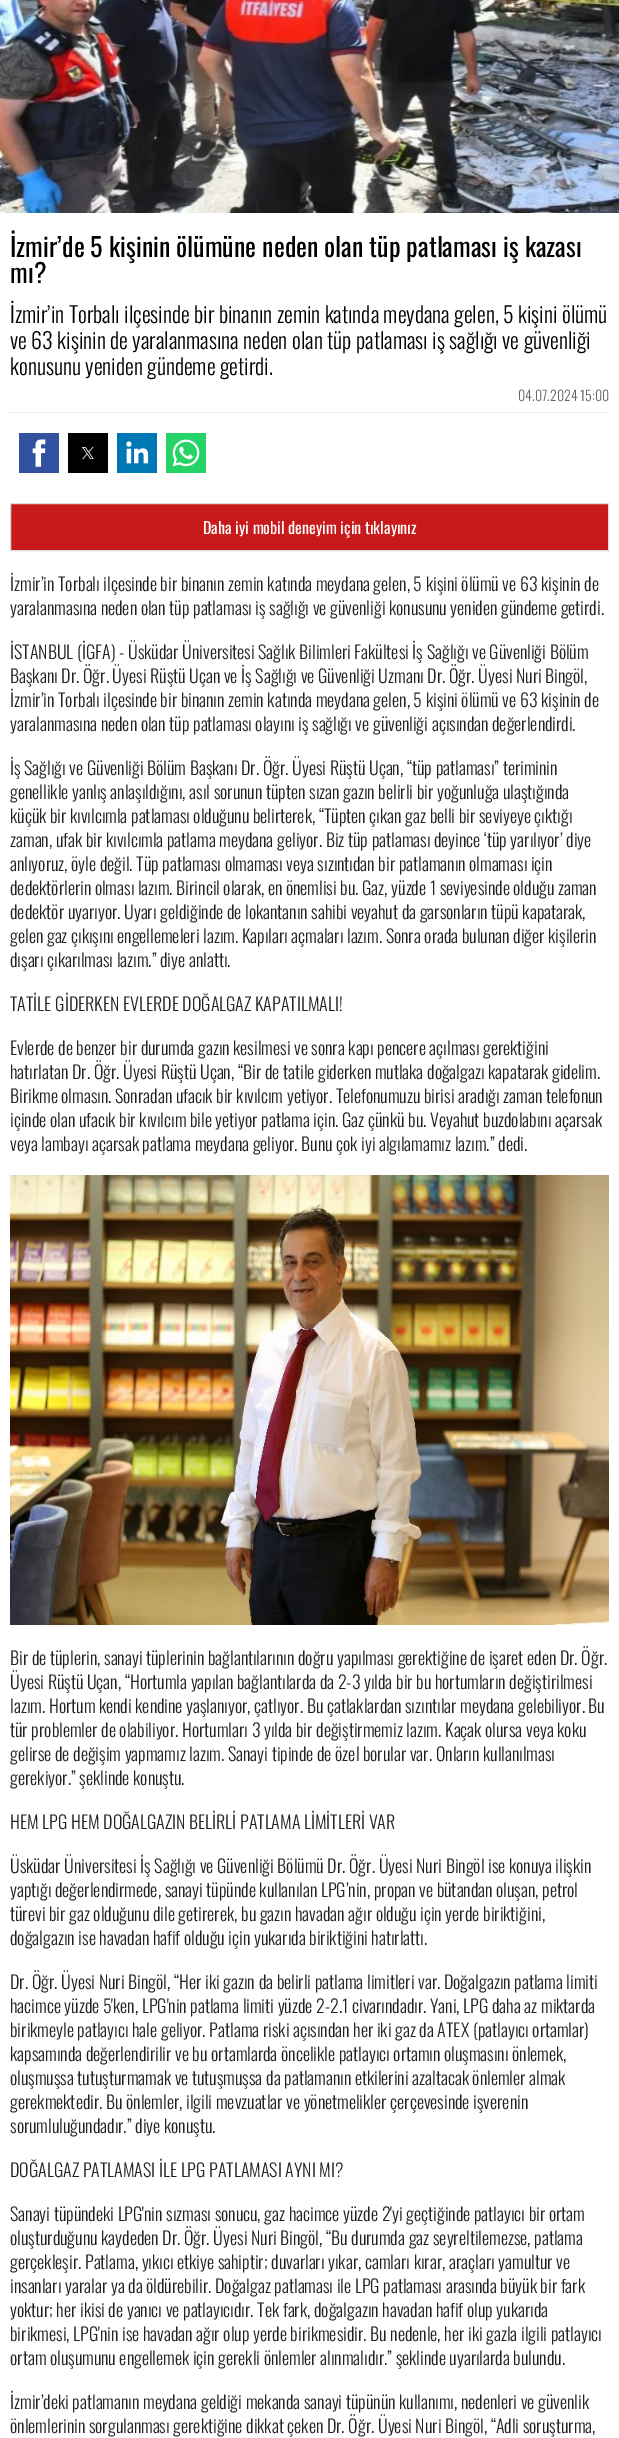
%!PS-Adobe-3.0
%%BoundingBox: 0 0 619 2438
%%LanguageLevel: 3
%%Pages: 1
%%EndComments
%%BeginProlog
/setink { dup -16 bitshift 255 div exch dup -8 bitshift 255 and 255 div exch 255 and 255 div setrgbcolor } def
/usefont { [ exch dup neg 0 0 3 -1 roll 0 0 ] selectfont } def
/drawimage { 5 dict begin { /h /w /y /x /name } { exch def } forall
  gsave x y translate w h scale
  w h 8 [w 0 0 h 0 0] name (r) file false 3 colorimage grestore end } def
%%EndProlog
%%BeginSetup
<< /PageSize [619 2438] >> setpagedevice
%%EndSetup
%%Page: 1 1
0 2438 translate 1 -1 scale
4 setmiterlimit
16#FFFFFF setink
0 0 619 2438 rectfill
(img1.raw) 0 0 619 213 drawimage
/Oswald-Regular 26 usefont
16#000000 setink
10 257 moveto (İzmir’de 5 kişinin ölümüne neden olan tüp patlaması iş kazası) show
10 283 moveto (mı?) show
/Oswald-Light 22 usefont
[
    [(İzmir’in Torbalı ilçesinde bir binanın zemin katında meydana gelen, 5 kişini ölümü) 10 323]
    [(ve 63 kişinin de yaralanmasına neden olan tüp patlaması iş sağlığı ve güvenliği) 10 349]
    [(konusunu yeniden gündeme getirdi.) 10 375]
] { aload pop moveto show } forall
16#EEEEEE setink
10 412 599 1 rectfill
/Oswald-Light 14 usefont
16#666666 setink
518 401 moveto (04.07.2024 15:00) show
16#32529F setink
19 433 40 40 rectfill
(img2.raw) 32 439 14 28 drawimage
16#000000 setink
68 433 40 40 rectfill
(img3.raw) 82 447 12 12 drawimage
16#0077B5 setink
117 433 40 40 rectfill
(img4.raw) 126 441 23 23 drawimage
16#25D366 setink
166 433 40 40 rectfill
(img5.raw) 172 439 28 28 drawimage
16#C71A1B setink
10.5 503.5 moveto 608.5 503.5 lineto 608.5 550.5 lineto 10.5 550.5 lineto closepath gsave fill grestore
16#DCDCDC setink
stroke
/Oswald-Regular 16 usefont
16#FFFFFF setink
203 534 moveto (Daha iyi mobil deneyim için tıklayınız) show
/Oswald-Light 18 usefont
16#222222 setink
[
    [(İzmir’in Torbalı ilçesinde bir binanın zemin katında meydana gelen, 5 kişini ölümü ve 63 kişinin de) 10 591]
    [(yaralanmasına neden olan tüp patlaması iş sağlığı ve güvenliği konusunu yeniden gündeme getirdi.) 10 615]
    [(İSTANBUL \(İGFA\) - Üsküdar Üniversitesi Sağlık Bilimleri Fakültesi İş Sağlığı ve Güvenliği Bölüm) 10 659]
    [(Başkanı Dr. Öğr. Üyesi Rüştü Uçan ve İş Sağlığı ve Güvenliği Uzmanı Dr. Öğr. Üyesi Nuri Bingöl,) 10 683]
    [(İzmir’in Torbalı ilçesinde bir binanın zemin katında meydana gelen, 5 kişini ölümü ve 63 kişinin de) 10 707]
    [(yaralanmasına neden olan tüp patlaması olayını iş sağlığı ve güvenliği açısından değerlendirdi.) 10 731]
    [(İş Sağlığı ve Güvenliği Bölüm Başkanı Dr. Öğr. Üyesi Rüştü Uçan, “tüp patlaması” teriminin) 10 775]
    [(genellikle yanlış anlaşıldığını, asıl sorunun tüpten sızan gazın belirli bir yoğunluğa ulaştığında) 10 799]
    [(küçük bir kıvılcımla patlaması olduğunu belirterek, “Tüpten çıkan gaz belli bir seviyeye çıktığı) 10 823]
    [(zaman, ufak bir kıvılcımla patlama meydana geliyor. Biz tüp patlaması deyince ‘tüp yarılıyor’ diye) 10 847]
    [(anlıyoruz, öyle değil. Tüp patlaması olmaması veya sızıntıdan bir patlamanın olmaması için) 10 871]
    [(dedektörlerin olması lazım. Birincil olarak, en önemlisi bu. Gaz, yüzde 1 seviyesinde olduğu zaman) 10 895]
    [(dedektör uyarıyor. Uyarı geldiğinde de lokantanın sahibi veyahut da garsonların tüpü kapatarak,) 10 919]
    [(gelen gaz çıkışını engellemeleri lazım. Kapıları açmaları lazım. Sonra orada bulunan diğer kişilerin) 10 943]
    [(dışarı çıkarılması lazım.” diye anlattı.) 10 967]
    [(TATİLE GİDERKEN EVLERDE DOĞALGAZ KAPATILMALI!) 10 1011]
    [(Evlerde de benzer bir durumda gazın kesilmesi ve sonra kapı pencere açılması gerektiğini) 10 1055]
    [(hatırlatan Dr. Öğr. Üyesi Rüştü Uçan, “Bir de tatile giderken mutlaka doğalgazı kapatarak gidelim.) 10 1079]
    [(Birikme olmasın. Sonradan ufacık bir kıvılcım yetiyor. Telefonumuzu birisi aradığı zaman telefonun) 10 1103]
    [(içinde olan ufacık bir kıvılcım bile yetiyor patlama için. Gaz çünkü bu. Veyahut buzdolabını açarsak) 10 1127]
    [(veya lambayı açarsak patlama meydana geliyor. Bunu çok iyi algılamamız lazım.” dedi.) 10 1151]
] { aload pop moveto show } forall
(img6.raw) 10 1175 599 450 drawimage
[
    [(Bir de tüplerin, sanayi tüplerinin bağlantılarının doğru yapılması gerektiğine de işaret eden Dr. Öğr.) 10 1665]
    [(Üyesi Rüştü Uçan, “Hortumla yapılan bağlantılarda da 2-3 yılda bir bu hortumların değiştirilmesi) 10 1689]
    [(lazım. Hortum kendi kendine yaşlanıyor, çatlıyor. Bu çatlaklardan sızıntılar meydana gelebiliyor. Bu) 10 1713]
    [(tür problemler de olabiliyor. Hortumları 3 yılda bir değiştirmemiz lazım. Kaçak olursa veya koku) 10 1737]
    [(gelirse de değişim yapmamız lazım. Sanayi tipinde de özel borular var. Onların kullanılması) 10 1761]
    [(gerekiyor.” şeklinde konuştu.) 10 1785]
    [(HEM LPG HEM DOĞALGAZIN BELİRLİ PATLAMA LİMİTLERİ VAR) 10 1829]
    [(Üsküdar Üniversitesi İş Sağlığı ve Güvenliği Bölümü Dr. Öğr. Üyesi Nuri Bingöl ise konuya ilişkin) 10 1873]
    [(yaptığı değerlendirmede, sanayi tüpünde kullanılan LPG’nin, propan ve bütandan oluşan, petrol) 10 1897]
    [(türevi bir gaz olduğunu dile getirerek, bu gazın havadan ağır olduğu için yerde biriktiğini,) 10 1921]
    [(doğalgazın ise havadan hafif olduğu için yukarıda biriktiğini hatırlattı.) 10 1945]
    [(Dr. Öğr. Üyesi Nuri Bingöl, “Her iki gazın da belirli patlama limitleri var. Doğalgazın patlama limiti) 10 1989]
    [(hacimce yüzde 5'ken, LPG'nin patlama limiti yüzde 2-2.1 civarındadır. Yani, LPG daha az miktarda) 10 2013]
    [(birikmeyle patlayıcı hale geliyor. Patlama riski açısından her iki gaz da ATEX \(patlayıcı ortamlar\)) 10 2037]
    [(kapsamında değerlendirilir ve bu ortamlarda öncelikle patlayıcı ortamın oluşmasını önlemek,) 10 2061]
    [(oluşmuşsa tutuşturmamak ve tutuşmuşsa da patlamanın etkilerini azaltacak önlemler almak) 10 2085]
    [(gerekmektedir. Bu önlemler, ilgili mevzuatlar ve yönetmelikler çerçevesinde işverenin) 10 2109]
    [(sorumluluğundadır.” diye konuştu.) 10 2133]
    [(DOĞALGAZ PATLAMASI İLE LPG PATLAMASI AYNI MI?) 10 2177]
    [(Sanayi tüpündeki LPG'nin sızması sonucu, gaz hacimce yüzde 2'yi geçtiğinde patlayıcı bir ortam) 10 2221]
    [(oluşturduğunu kaydeden Dr. Öğr. Üyesi Nuri Bingöl, “Bu durumda gaz seyreltilemezse, patlama) 10 2245]
    [(gerçekleşir. Patlama, yıkıcı etkiye sahiptir; duvarları yıkar, camları kırar, araçları yamultur ve) 10 2269]
    [(insanları yaralar ya da öldürebilir. Doğalgaz patlaması ile LPG patlaması arasında büyük bir fark) 10 2293]
    [(yoktur; her ikisi de yanıcı ve patlayıcıdır. Tek fark, doğalgazın havadan hafif olup yukarıda) 10 2317]
    [(birikmesi, LPG'nin ise havadan ağır olup yerde birikmesidir. Bu nedenle, her iki gazla ilgili patlayıcı) 10 2341]
    [(ortam oluşumunu engellemek için gerekli önlemler alınmalıdır.” şeklinde uyarılarda bulundu.) 10 2365]
    [(İzmir’deki patlamanın meydana geldiği mekanda sanayi tüpünün kullanımı, nedenleri ve güvenlik) 10 2409]
    [(önlemlerinin sorgulanması gerektiğine dikkat çeken Dr. Öğr. Üyesi Nuri Bingöl, “Adli soruşturma,) 10 2433]
] { aload pop moveto show } forall
showpage
%%EOF
